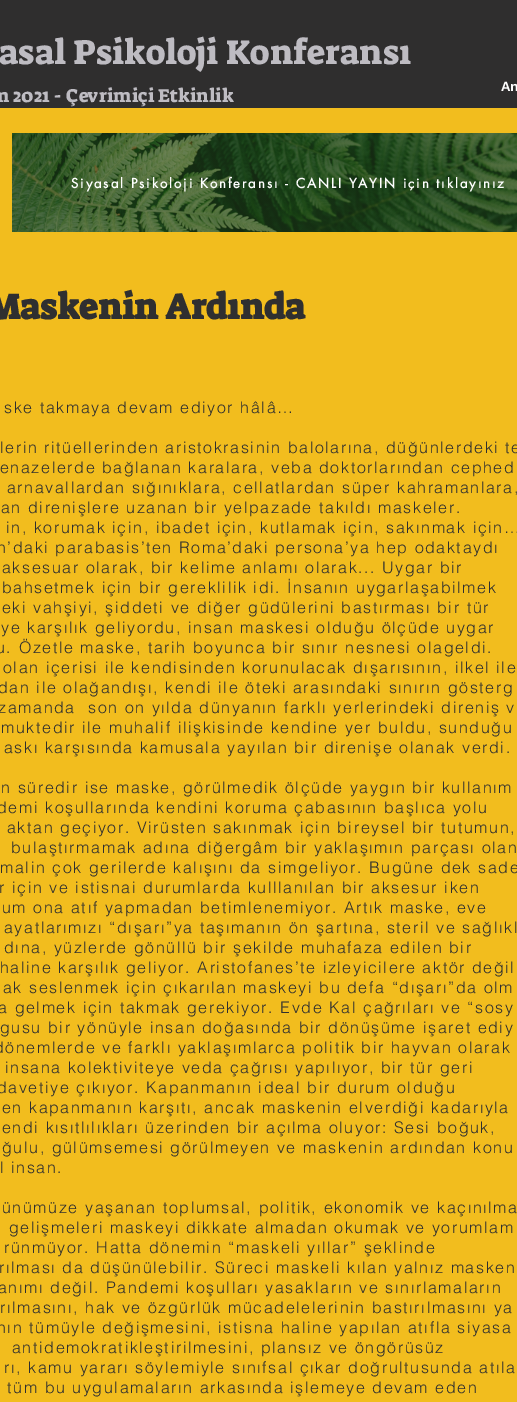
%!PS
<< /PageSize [517 1402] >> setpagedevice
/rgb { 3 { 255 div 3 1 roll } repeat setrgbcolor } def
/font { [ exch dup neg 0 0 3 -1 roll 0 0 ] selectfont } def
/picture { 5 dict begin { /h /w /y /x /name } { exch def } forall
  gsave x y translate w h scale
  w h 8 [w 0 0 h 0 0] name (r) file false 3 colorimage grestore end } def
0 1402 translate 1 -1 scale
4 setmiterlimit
242 189 30 rgb
0 0 517 1402 rectfill
47 46 46 rgb
0 0 517 108 rectfill
(img/1.rgb) 12 133 505 99 picture
/SuezOne-Regular 35 font
190 188 194 rgb
-1 64 moveto (asal Psikoloji Konferansı) show
/WorkSans-SemiBold 14 font
255 255 255 rgb
501 91 moveto (An) show
/SuezOne-Regular 19 font
190 188 194 rgb
-9 102 moveto (m 2021 - Çevrimiçi Etkinlik) show
/futura-Bold 13 font
255 255 255 rgb
71 188 moveto 1.95 0 (Siyasal Psikoloji Konferansı - CANLI YAYIN için tıklayınız) ashow
/SuezOne-Bold 36 font
47 47 48 rgb
-14 319 moveto (Maskenin Ardında) show
/helvetica-Light 16 font
4 413 moveto 1.6 0 (ske takmaya devam ediyor hâlâ…) ashow
0 453 moveto 1.6 0 (lerin ritüellerinden aristokrasinin balolarına, düğünlerdeki te) ashow
0 473 moveto 1.6 0 (enazelerde bağlanan karalara, veba doktorlarından cephed) ashow
7 493 moveto 1.6 0 (arnavallardan sığınıklara, cellatlardan süper kahramanlara,) ashow
1 513 moveto 1.6 0 (an direnişlere uzanan bir yelpazade takıldı maskeler.) ashow
6 533 moveto 1.6 0 (in, korumak için, ibadet için, kutlamak için, sakınmak için…) ashow
-3 553 moveto 1.6 0 (n’daki parabasis’ten Roma’daki persona’ya hep odaktaydı) ashow
2 573 moveto 1.6 0 (aksesuar olarak, bir kelime anlamı olarak... Uygar bir) ashow
2 593 moveto 1.6 0 (bahsetmek için bir gereklilik idi. İnsanın uygarlaşabilmek) ashow
2 613 moveto 1.6 0 (eki vahşiyi, şiddeti ve diğer güdülerini bastırması bir tür) ashow
1 633 moveto 1.6 0 (ye karşılık geliyordu, insan maskesi olduğu ölçüde uygar) ashow
-4 653 moveto 1.6 0 (u. Özetle maske, tarih boyunca bir sınır nesnesi olageldi.) ashow
3 673 moveto 1.6 0 (olan içerisi ile kendisinden korunulacak dışarısının, ilkel ile) ashow
-2 693 moveto 1.6 0 (dan ile olağandışı, kendi ile öteki arasındaki sınırın gösterg) ashow
-2 713 moveto 1.6 0 (zamanda  son on yılda dünyanın farklı yerlerindeki direniş v) ashow
1 733 moveto 1.6 0 (muktedir ile muhalif ilişkisinde kendine yer buldu, sunduğu) ashow
4 753 moveto 1.6 0 (askı karşısında kamusala yayılan bir direnişe olanak verdi.) ashow
1 793 moveto 1.6 0 (n süredir ise maske, görülmedik ölçüde yaygın bir kullanım) ashow
-3 813 moveto 1.6 0 (demi koşullarında kendini koruma çabasının başlıca yolu) ashow
7 833 moveto 1.6 0 (aktan geçiyor. Virüsten sakınmak için bireysel bir tutumun,) ashow
11 853 moveto 1.6 0 (bulaştırmamak adına diğergâm bir yaklaşımın parçası olan) ashow
0 873 moveto 1.6 0 (malin çok gerilerde kalışını da simgeliyor. Bugüne dek sade) ashow
-1 893 moveto 1.6 0 (r için ve istisnai durumlarda kulllanılan bir aksesur iken) ashow
2 913 moveto 1.6 0 (um ona atıf yapmadan betimlenemiyor. Artık maske, eve) ashow
4 933 moveto 1.6 0 (ayatlarımızı “dışarı”ya taşımanın ön şartına, steril ve sağlıkl) ashow
4 953 moveto 1.6 0 (dına, yüzlerde gönüllü bir şekilde muhafaza edilen bir) ashow
0 973 moveto 1.6 0 (haline karşılık geliyor. Aristofanes’te izleyicilere aktör değil) ashow
3 993 moveto 1.6 0 (ak seslenmek için çıkarılan maskeyi bu defa “dışarı”da olm) ashow
-2 1013 moveto 1.6 0 (a gelmek için takmak gerekiyor. Evde Kal çağrıları ve “sosy) ashow
0 1033 moveto 1.6 0 (gusu bir yönüyle insan doğasında bir dönüşüme işaret ediy) ashow
-6 1053 moveto 1.6 0 (dönemlerde ve farklı yaklaşımlarca politik bir hayvan olarak) ashow
5 1073 moveto 1.6 0 (insana kolektiviteye veda çağrısı yapılıyor, bir tür geri) ashow
-3 1093 moveto 1.6 0 (davetiye çıkıyor. Kapanmanın ideal bir durum olduğu) ashow
2 1113 moveto 1.6 0 (en kapanmanın karşıtı, ancak maskenin elverdiği kadarıyla) ashow
2 1133 moveto 1.6 0 (endi kısıtlılıkları üzerinden bir açılma oluyor: Sesi boğuk,) ashow
2 1153 moveto 1.6 0 (ğulu, gülümsemesi görülmeyen ve maskenin ardından konu) ashow
0 1173 moveto 1.6 0 (l insan.) ashow
2 1213 moveto 1.6 0 (ünümüze yaşanan toplumsal, politik, ekonomik ve kaçınılma) ashow
9 1233 moveto 1.6 0 (gelişmeleri maskeyi dikkate almadan okumak ve yorumlam) ashow
4 1253 moveto 1.6 0 (rünmüyor. Hatta dönemin “maskeli yıllar” şeklinde) ashow
-1 1273 moveto 1.6 0 (rılması da düşünülebilir. Süreci maskeli kılan yalnız masken) ashow
-2 1293 moveto 1.6 0 (anımı değil. Pandemi koşulları yasakların ve sınırlamaların) ashow
0 1313 moveto 1.6 0 (rılmasını, hak ve özgürlük mücadelelerinin bastırılmasını ya) ashow
-3 1333 moveto 1.6 0 (nın tümüyle değişmesini, istisna haline yapılan atıfla siyasa) ashow
12 1353 moveto 1.6 0 (antidemokratikleştirilmesini, plansız ve öngörüsüz) ashow
4 1373 moveto 1.6 0 (rı, kamu yararı söylemiyle sınıfsal çıkar doğrultusunda atıla) ashow
7 1393 moveto 1.6 0 (tüm bu uygulamaların arkasında işlemeye devam eden) ashow
showpage
